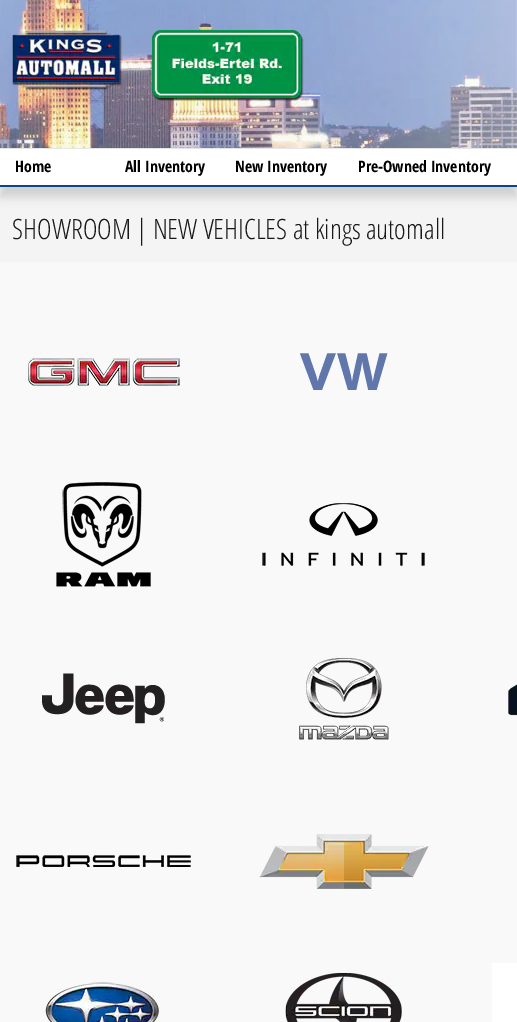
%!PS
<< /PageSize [517 1022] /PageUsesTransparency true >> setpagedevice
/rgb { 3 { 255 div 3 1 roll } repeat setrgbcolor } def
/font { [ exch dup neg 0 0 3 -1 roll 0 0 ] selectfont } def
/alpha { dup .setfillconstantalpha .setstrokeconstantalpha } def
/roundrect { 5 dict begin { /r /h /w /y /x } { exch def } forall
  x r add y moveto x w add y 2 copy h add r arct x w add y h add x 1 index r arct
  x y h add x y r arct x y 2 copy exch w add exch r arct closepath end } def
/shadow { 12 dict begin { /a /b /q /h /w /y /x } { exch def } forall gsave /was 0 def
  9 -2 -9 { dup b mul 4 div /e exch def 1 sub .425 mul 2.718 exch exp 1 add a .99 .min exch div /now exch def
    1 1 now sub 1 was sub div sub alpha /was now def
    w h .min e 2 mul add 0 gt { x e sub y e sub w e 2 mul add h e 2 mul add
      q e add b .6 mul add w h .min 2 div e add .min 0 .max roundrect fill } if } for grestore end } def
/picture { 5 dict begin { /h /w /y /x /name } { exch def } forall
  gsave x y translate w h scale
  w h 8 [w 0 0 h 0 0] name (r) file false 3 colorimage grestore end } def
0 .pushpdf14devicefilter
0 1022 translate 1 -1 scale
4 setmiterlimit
249 249 250 rgb
0 0 517 1022 rectfill
244 244 244 rgb
0 187 517 75 rectfill
0 0 0 rgb
0 158 517 39 0 5 0.15 shadow
(img/1.rgb) 0 0 517 148 picture
(img/2.rgb) 12 30 110 60 picture
(img/3.rgb) 152 30 152 71 picture
[
  [0 149 517 36 255 255 255]
  [0 185 517 2 10 70 141]
  [0 148 517 1 230 230 230]
] { aload pop rgb rectfill } forall
(img/4.rgb) 28 358 152 28 picture
(img/5.rgb) 300 353 88 37 picture
(img/6.rgb) 56 482 95 105 picture
(img/7.rgb) 262 503 163 63 picture
(img/8.rgb) 42 673 123 51 picture
(img/9.rgb) 299 657 90 83 picture
(img/10.rgb) 508 684 9 32 picture
(img/11.rgb) 16 855 175 12 picture
(img/12.rgb) 259 834 170 55 picture
(img/13.rgb) 45 982 114 40 picture
(img/14.rgb) 285 972 117 50 picture
255 255 255 rgb
492 963 25 59 rectfill
/OpenSansCondensed-Bold 15.75 font
0 0 0 rgb
[
  [(Home) 15 172]
  [(All Inventory) 125 172]
  [(New Inventory) 235 172]
  [(Pre-Owned Inventory) 358 172]
] { aload pop moveto show } forall
/OpenSans-Light 28 font
24 24 24 rgb
12 239 moveto (SHOWROOM | NEW VEHICLES at kings automall) show
.poppdf14devicefilter showpage
